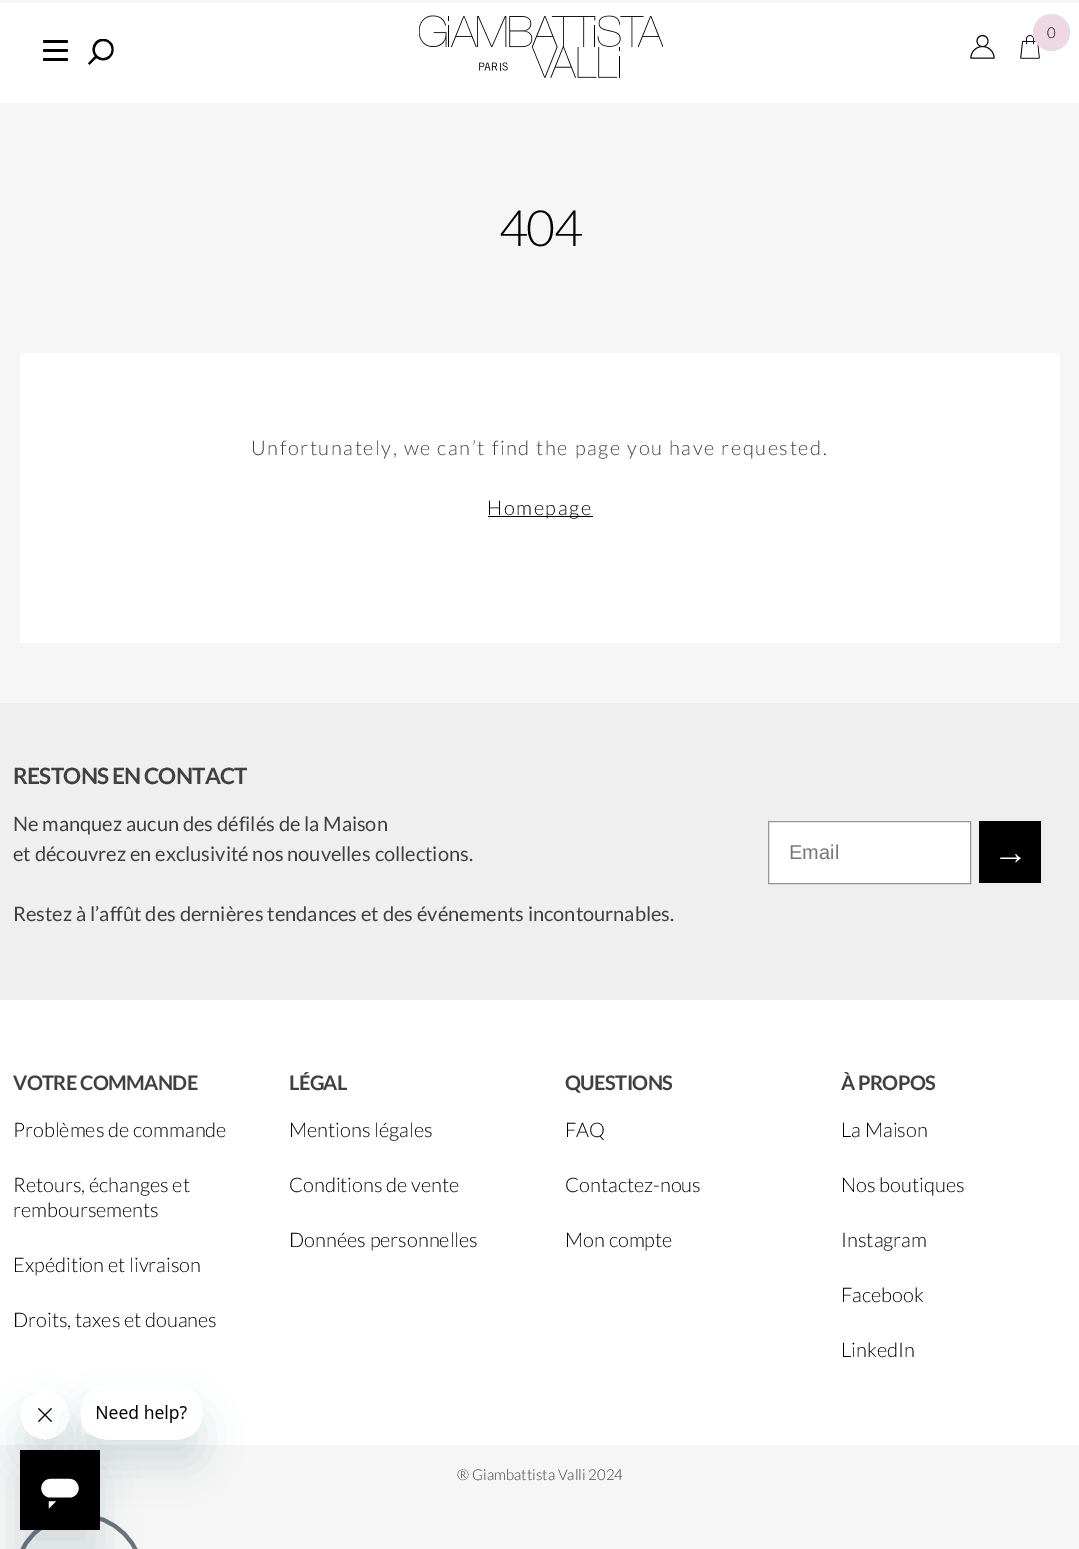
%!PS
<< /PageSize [1079 1549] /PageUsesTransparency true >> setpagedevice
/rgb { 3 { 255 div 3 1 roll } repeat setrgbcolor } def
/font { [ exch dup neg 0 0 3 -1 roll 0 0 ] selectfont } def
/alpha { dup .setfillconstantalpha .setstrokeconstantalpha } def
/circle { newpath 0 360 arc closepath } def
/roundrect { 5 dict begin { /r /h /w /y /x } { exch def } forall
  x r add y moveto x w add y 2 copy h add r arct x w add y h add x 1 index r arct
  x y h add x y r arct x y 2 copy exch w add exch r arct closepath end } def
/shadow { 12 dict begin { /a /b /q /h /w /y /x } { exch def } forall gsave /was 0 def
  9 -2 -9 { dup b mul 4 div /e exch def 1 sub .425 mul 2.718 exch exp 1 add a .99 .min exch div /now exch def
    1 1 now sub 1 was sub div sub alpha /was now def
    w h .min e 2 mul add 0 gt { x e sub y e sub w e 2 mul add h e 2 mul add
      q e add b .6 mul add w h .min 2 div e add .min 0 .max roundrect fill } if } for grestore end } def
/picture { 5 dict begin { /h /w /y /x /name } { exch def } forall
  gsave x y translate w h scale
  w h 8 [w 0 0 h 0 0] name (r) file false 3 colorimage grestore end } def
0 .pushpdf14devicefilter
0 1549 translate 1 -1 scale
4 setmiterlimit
247 246 246 rgb
0 0 1079 1549 rectfill
255 255 255 rgb
0 3 1079 100 rectfill
(img/1.rgb) 419 15 244 63 picture
(img/2.rgb) 1020 35 20 24 picture
236 217 228 rgb
1051.5 32.5 18.5 circle fill
(img/3.rgb) 970 35 25 24 picture
(img/4.rgb) 88 39 26 26 picture
0 0 0 rgb
43 49 25 3 1.5 roundrect fill
43 40 25 3 1.5 roundrect fill
43 58 25 3 1.5 roundrect fill
[
  [20 353 1040 290 255 255 255]
  [488 516 105 1 0 0 0]
  [0 703 1079 297 239 239 239]
] { aload pop rgb rectfill } forall
255 255 255 rgb
768.5 821.5 moveto 970.5 821.5 lineto 970.5 883.5 lineto 768.5 883.5 lineto closepath gsave fill grestore
148 149 150 rgb
stroke
0 0 0 rgb
979 821 62 62 rectfill
255 255 255 rgb
0 1000 1079 445 rectfill
105 114 125 rgb
4 setlinewidth
15 1515 128 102 64 roundrect stroke
gsave
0 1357 moveto 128 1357 lineto 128 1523 lineto 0 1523 lineto closepath 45 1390 moveto 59 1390 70 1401 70 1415 curveto 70 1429 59 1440 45 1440 curveto 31 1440 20 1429 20 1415 curveto 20 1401 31 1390 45 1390 curveto closepath eoclip newpath
23 73 77 rgb
20 1415 50 50 25 19 0.15 shadow
grestore
(img/6.rgb) 38 1408 14 14 picture
gsave
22 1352 moveto 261 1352 lineto 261 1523 lineto 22 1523 lineto closepath 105 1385 moveto 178 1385 lineto 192 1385 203 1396 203 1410 curveto 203 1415 lineto 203 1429 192 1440 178 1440 curveto 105 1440 lineto 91 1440 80 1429 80 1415 curveto 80 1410 lineto 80 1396 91 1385 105 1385 curveto closepath eoclip newpath
23 73 77 rgb
80 1410 123 55 25 19 0.15 shadow
grestore
(img/5.rgb) 81 1405 106 29 picture
23 73 77 rgb
20 1475 80 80 0 19 0.15 shadow
(img/7.rgb) 20 1450 80 80 picture
/Lato-Light 15 font
0 0 0 rgb
1047 38 moveto (0) show
/Lato-Light 50 font
499 246 moveto -1.5 0 (404) ashow
/Lato-Light 20 font
64 64 64 rgb
251 455 moveto 1.6 0 (Unfortunately, we can’t find the page you have requested.) ashow
0 0 0 rgb
487 515 moveto 1.6 0 (Homepage) ashow
/Lato-Bold 22.5 font
64 64 64 rgb
13 784 moveto -0.7 0 (RESTONS EN CONTACT) ashow
/Lato-Regular 20 font
[
  [(Ne manquez aucun des défilés de la Maison) 13 831]
  [(et découvrez en exclusivité nos nouvelles collections.) 13 861]
  [(Restez à l’affût des dernières tendances et des événements incontournables.) 13 921]
] { aload pop moveto show } forall
/LiberationSans-Regular 20 font
118 118 118 rgb
789 859 moveto (Email) show
/LiberationSans-Regular 35 font
255 255 255 rgb
993 864 moveto (→) show
/Lato-Bold 20 font
64 64 64 rgb
13 1090 moveto -0.6 0 (VOTRE COMMANDE) ashow
/Lato-Light 20 font
0 0 0 rgb
[
  [(Problèmes de commande) 13 1137]
  [(Retours, échanges et) 13 1192]
  [(remboursements) 13 1217]
  [(Expédition et livraison) 13 1272]
  [(Droits, taxes et douanes) 13 1327]
] { aload pop moveto show } forall
/Lato-Bold 20 font
64 64 64 rgb
289 1090 moveto -0.6 0 (LÉGAL) ashow
/Lato-Light 20 font
0 0 0 rgb
[
  [(Mentions légales) 289 1137]
  [(Conditions de vente) 289 1192]
  [(Données personnelles) 289 1247]
] { aload pop moveto show } forall
/Lato-Bold 20 font
64 64 64 rgb
565 1090 moveto -0.6 0 (QUESTIONS) ashow
/Lato-Light 20 font
0 0 0 rgb
[
  [(FAQ) 565 1137]
  [(Contactez-nous) 565 1192]
  [(Mon compte) 565 1247]
] { aload pop moveto show } forall
/Lato-Bold 20 font
64 64 64 rgb
841 1090 moveto -0.6 0 (À PROPOS) ashow
/Lato-Light 20 font
0 0 0 rgb
[
  [(La Maison) 841 1137]
  [(Nos boutiques) 841 1192]
  [(Instagram) 841 1247]
  [(Facebook) 841 1302]
  [(LinkedIn) 841 1357]
] { aload pop moveto show } forall
/Lato-Light 15 font
64 64 64 rgb
457 1480 moveto (® Giambattista Valli 2024) show
.poppdf14devicefilter showpage
